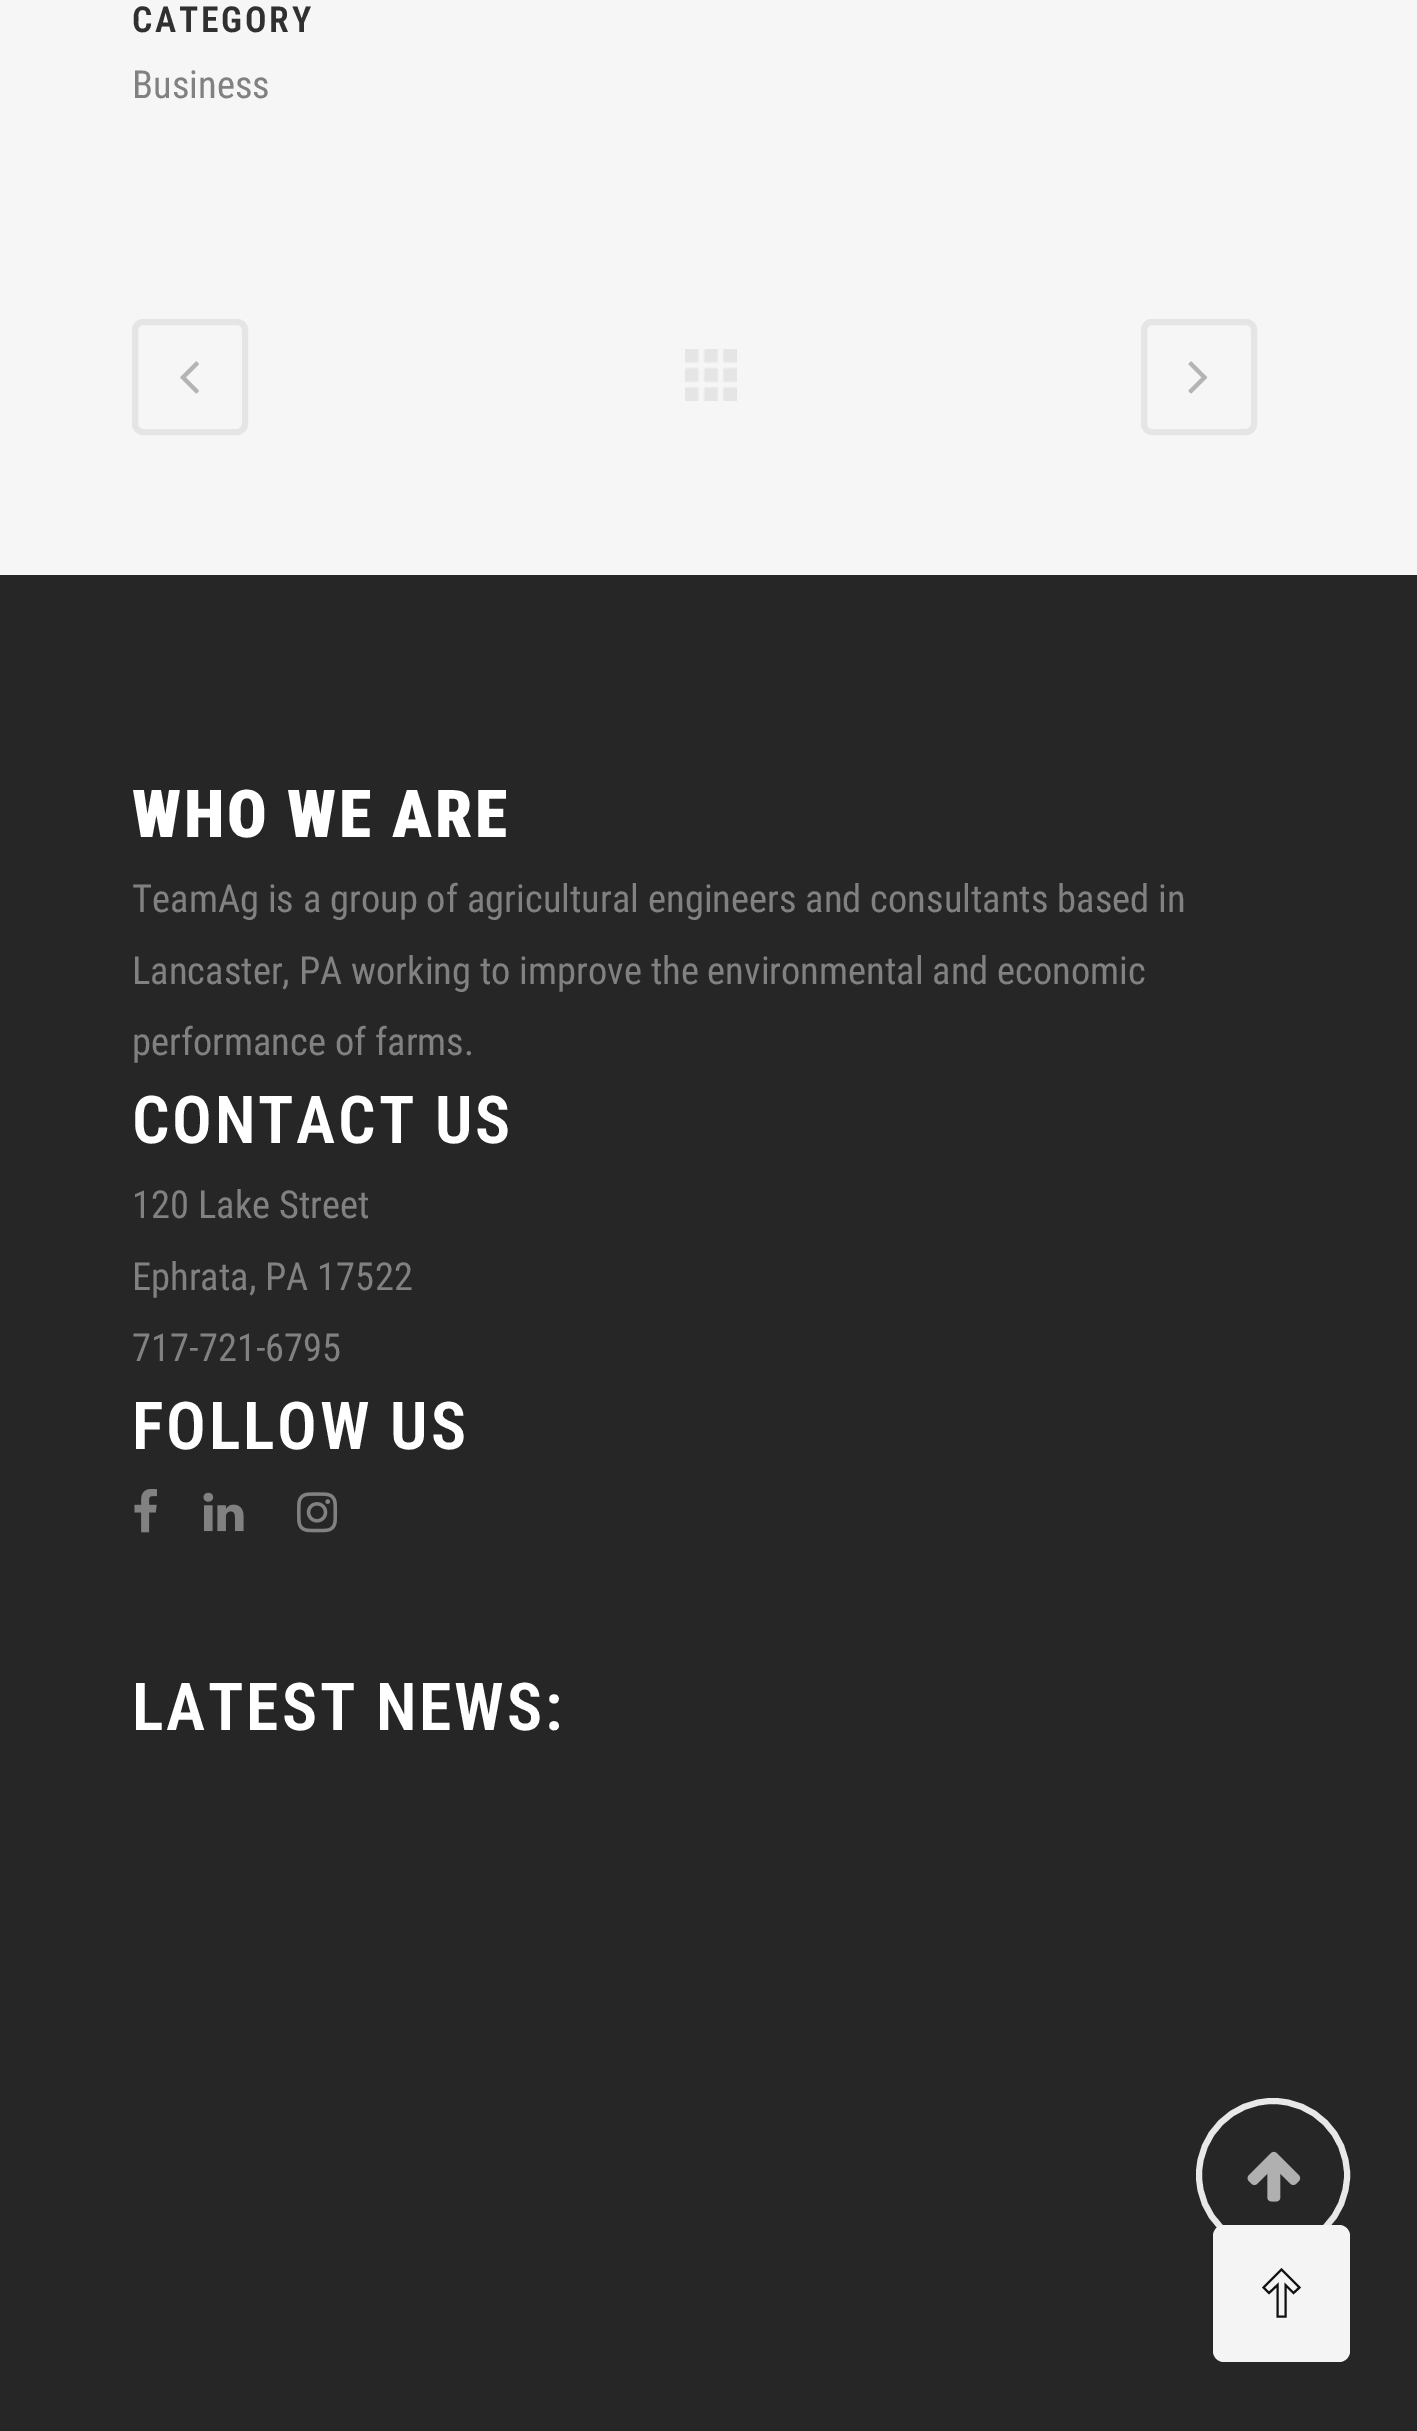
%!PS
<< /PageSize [1417 2431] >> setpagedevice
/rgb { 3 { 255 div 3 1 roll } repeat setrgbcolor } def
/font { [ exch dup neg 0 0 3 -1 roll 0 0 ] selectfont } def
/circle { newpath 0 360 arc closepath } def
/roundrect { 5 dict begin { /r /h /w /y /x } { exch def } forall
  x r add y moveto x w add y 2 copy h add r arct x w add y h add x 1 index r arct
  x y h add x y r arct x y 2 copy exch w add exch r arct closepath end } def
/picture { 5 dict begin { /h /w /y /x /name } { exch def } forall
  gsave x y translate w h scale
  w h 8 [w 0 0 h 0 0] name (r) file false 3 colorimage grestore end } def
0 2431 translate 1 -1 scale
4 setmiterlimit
246 246 246 rgb
0 0 1417 2431 rectfill
229 229 229 rgb
6 setlinewidth
135 322 110 110 8 roundrect stroke
(img/1.rgb) 180 361 19 33 picture
(img/2.rgb) 685 349 52 52 picture
1144 322 110 110 8 roundrect stroke
(img/3.rgb) 1188 361 20 33 picture
38 38 38 rgb
0 575 1417 1856 rectfill
(img/4.rgb) 134 1488 23 45 picture
(img/5.rgb) 203 1492 41 40 picture
(img/6.rgb) 297 1492 41 41 picture
232 232 232 rgb
1273 2175 74 circle stroke
(img/7.rgb) 1247 2151 54 51 picture
244 244 244 rgb
1213 2225 137 137 11 roundrect fill
gsave
1262.5 2318 moveto 1262.5 2268.5 lineto 1300.5 2268.5 lineto 1300.5 2318 lineto closepath clip newpath
17 17 17 rgb
2 setlinewidth
1277.5 2316.5 moveto 1277.5 2285 lineto 1269 2293 lineto 1263.5 2287.5 lineto 1281.5 2269.5 lineto 1299.5 2287.5 lineto 1293.5 2293 lineto 1285.5 2285 lineto 1285.5 2316.5 lineto closepath stroke
grestore
/RobotoCondensed-SemiBold 35.75 font
48 48 48 rgb
132 32 moveto 2.75 0 (CATEGORY) ashow
/RobotoCondensed-Regular 38.5 font
129 129 129 rgb
132 98 moveto (Business) show
/RobotoCondensed-Black 66 font
255 255 255 rgb
132 837 moveto 2.75 0 (WHO WE ARE) ashow
/RobotoCondensed-Regular 38.5 font
129 129 129 rgb
[
  [(TeamAg is a group of agricultural engineers and consultants based in) 132 912]
  [(Lancaster, PA working to improve the environmental and economic) 132 984]
  [(performance of farms.) 132 1055]
] { aload pop moveto show } forall
/RobotoCondensed-SemiBold 66 font
255 255 255 rgb
132 1143 moveto 2.75 0 (CONTACT US) ashow
/RobotoCondensed-Regular 38.5 font
129 129 129 rgb
[
  [(120 Lake Street) 132 1218]
  [(Ephrata, PA 17522) 132 1290]
  [(717-721-6795) 132 1361]
] { aload pop moveto show } forall
/RobotoCondensed-SemiBold 66 font
255 255 255 rgb
132 1449 moveto 2.75 0 (FOLLOW US) ashow
132 1730 moveto 2.75 0 (LATEST NEWS:) ashow
showpage
